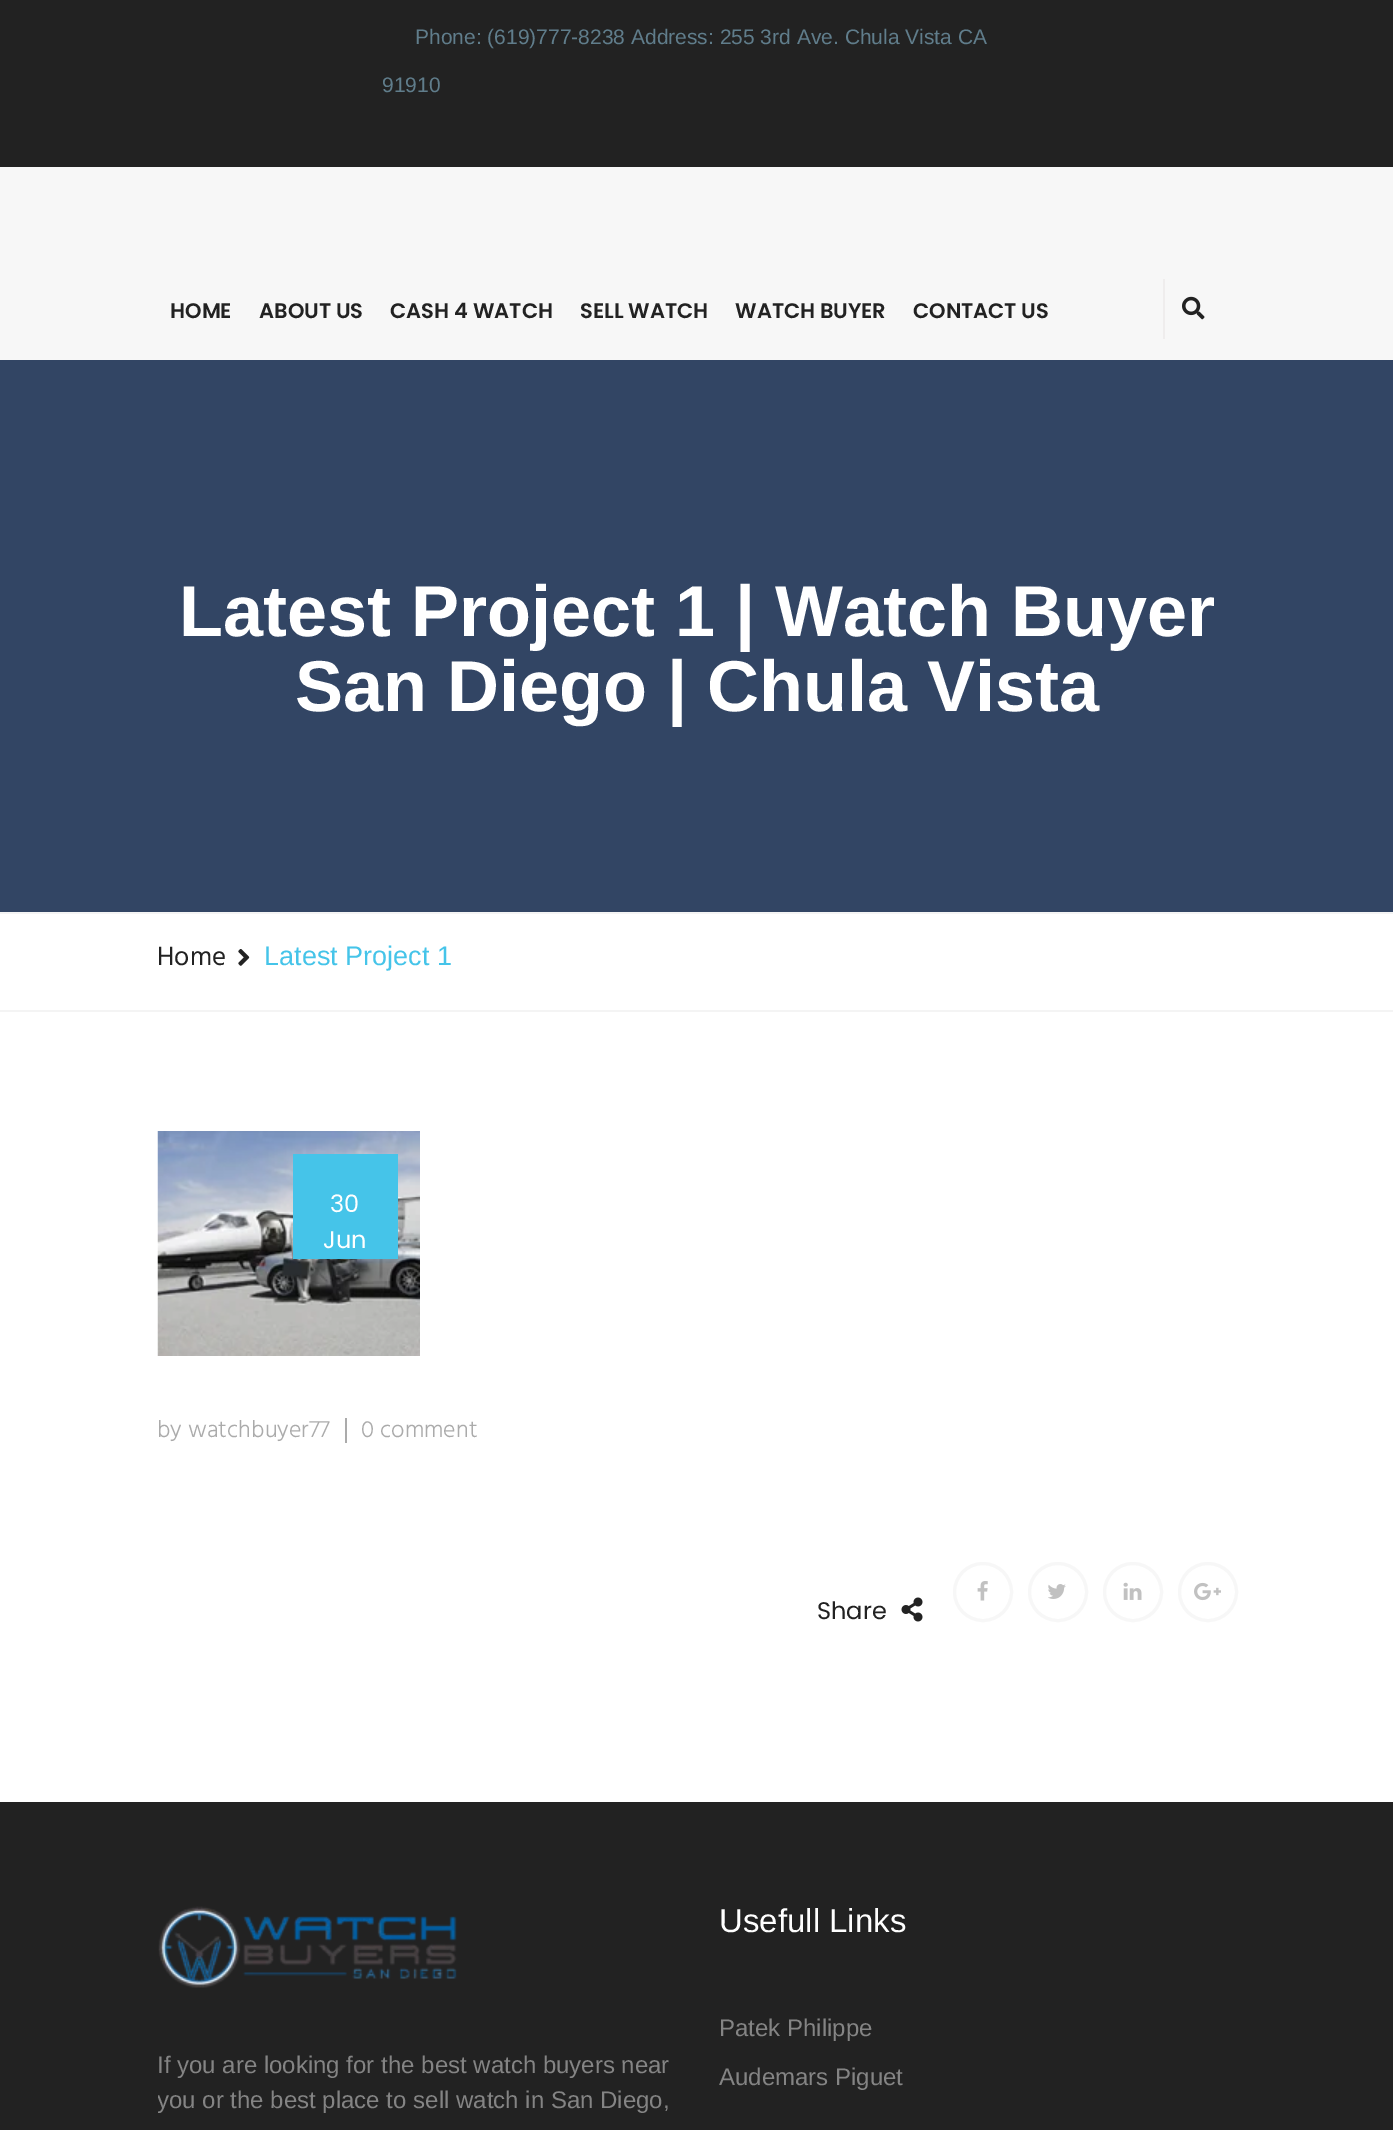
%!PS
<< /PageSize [1393 2130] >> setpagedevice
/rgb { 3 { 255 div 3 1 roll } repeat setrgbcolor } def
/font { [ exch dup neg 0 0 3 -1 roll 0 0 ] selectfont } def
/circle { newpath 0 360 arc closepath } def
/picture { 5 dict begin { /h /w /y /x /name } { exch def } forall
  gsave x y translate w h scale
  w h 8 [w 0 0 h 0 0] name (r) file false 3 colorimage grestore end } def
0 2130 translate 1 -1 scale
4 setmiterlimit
255 255 255 rgb
0 0 1393 2130 rectfill
[
  [0 0 1393 167 34 34 34]
  [0 167 1393 193 247 247 247]
  [1163 279 2 60 239 237 237]
] { aload pop rgb rectfill } forall
(img/1.rgb) 1182 296 23 24 picture
[
  [0 360 1393 552 50 69 100]
  [0 912 1393 2 244 244 244]
  [0 1010 1393 2 244 244 244]
] { aload pop rgb rectfill } forall
(img/2.rgb) 238 949 12 17 picture
(img/3.rgb) 157 1131 263 225 picture
69 196 233 rgb
293 1154 105 105 rectfill
171 171 171 rgb
345 1418 2 25 rectfill
(img/4.rgb) 901 1597 22 25 picture
247 247 247 rgb
3 setlinewidth
983 1592 28.5 circle stroke
(img/5.rgb) 977 1581 11 20 picture
1058 1592 28.5 circle stroke
(img/6.rgb) 1048 1584 18 15 picture
1133 1592 28.5 circle stroke
(img/7.rgb) 1123 1582 19 18 picture
1208 1592 28.5 circle stroke
(img/8.rgb) 1194 1582 27 19 picture
34 34 34 rgb
0 1802 1393 328 rectfill
(img/9.rgb) 158 1906 299 82 picture
/LiberationSans-Regular 21 font
96 125 139 rgb
415 44 moveto (Phone: \(619\)777-8238 Address: 255 3rd Ave. Chula Vista CA) show
gsave
383 12 630 96 rectclip
382 92 moveto (91910) show
grestore
/Poppins-SemiBold 21 font
34 34 34 rgb
[
  [(HOME) 170 318]
  [(ABOUT US) 259 318]
  [(CASH 4 WATCH) 390 318]
  [(SELL WATCH) 580 318]
  [(WATCH BUYER) 735 318]
  [(CONTACT US) 913 318]
] { aload pop moveto show } forall
/LiberationSans-Bold 72 font
255 255 255 rgb
179 636 moveto (Latest Project 1 | Watch Buyer) show
295 711 moveto (San Diego | Chula Vista) show
/Hind-Regular 27 font
34 34 34 rgb
157 965 moveto (Home) show
/LiberationSans-Regular 27 font
69 196 233 rgb
264 965 moveto (Latest Project 1) show
/Poppins-Regular 24 font
255 255 255 rgb
330 1212 moveto (30) show
323 1248 moveto (Jun) show
/Hind-Light 24 font
171 171 171 rgb
157 1437 moveto (by watchbuyer77) show
361 1437 moveto (0 comment) show
/Poppins-Regular 24 font
34 34 34 rgb
817 1619 moveto (Share) show
/LiberationSans-Regular 24 font
132 132 132 rgb
157 2073 moveto (If you are looking for the best watch buyers near) show
gsave
158 2027 517 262 rectclip
157 2108 moveto (you or the best place to sell watch in San Diego,) show
grestore
/LiberationSans-Regular 33 font
255 255 255 rgb
719 1932 moveto (Usefull Links) show
/LiberationSans-Regular 24 font
132 132 132 rgb
719 2036 moveto (Patek Philippe) show
719 2085 moveto (Audemars Piguet) show
showpage
